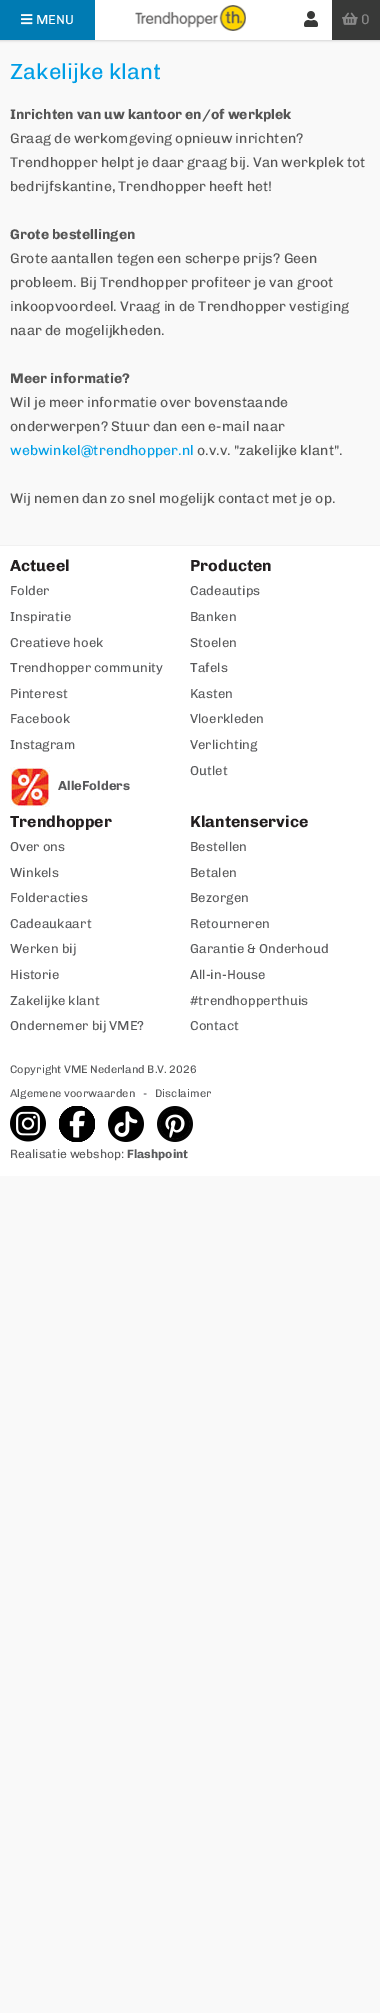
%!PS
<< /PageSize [380 2013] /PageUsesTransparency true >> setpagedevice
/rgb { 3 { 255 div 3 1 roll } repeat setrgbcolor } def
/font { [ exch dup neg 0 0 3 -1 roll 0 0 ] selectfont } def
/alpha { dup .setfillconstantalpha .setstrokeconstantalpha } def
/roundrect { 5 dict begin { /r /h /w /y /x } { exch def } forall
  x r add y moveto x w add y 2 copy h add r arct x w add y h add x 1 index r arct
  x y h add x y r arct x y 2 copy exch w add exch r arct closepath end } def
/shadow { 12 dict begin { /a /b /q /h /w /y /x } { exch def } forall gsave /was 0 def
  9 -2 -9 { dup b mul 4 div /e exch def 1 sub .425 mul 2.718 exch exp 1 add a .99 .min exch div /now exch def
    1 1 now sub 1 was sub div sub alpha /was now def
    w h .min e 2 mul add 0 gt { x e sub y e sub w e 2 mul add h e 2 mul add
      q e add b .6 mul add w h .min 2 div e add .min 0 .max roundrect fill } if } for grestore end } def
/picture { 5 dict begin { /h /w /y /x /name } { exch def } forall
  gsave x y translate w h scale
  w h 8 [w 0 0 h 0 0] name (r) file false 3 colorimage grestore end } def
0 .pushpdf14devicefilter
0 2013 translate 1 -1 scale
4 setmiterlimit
249 249 249 rgb
0 0 380 2013 rectfill
0 0 0 rgb
0 0 380 40 0 1.5 0.25 shadow
255 255 255 rgb
95 0 237 40 rectfill
0 123 179 rgb
0 0 95 40 rectfill
(img/1.rgb) 21 14 12 11 picture
(img/2.rgb) 135 5 111 26 picture
(img/3.rgb) 304 11 14 16 picture
56 57 56 rgb
332 0 48 40 rectfill
(img/4.rgb) 342 12 16 13 picture
255 255 255 rgb
0 546 380 630 rectfill
241 241 241 rgb
0 545 380 1 rectfill
(img/5.rgb) 10 767 40 40 picture
(img/6.rgb) 10 1106 36 36 picture
(img/7.rgb) 59 1106 36 36 picture
(img/8.rgb) 108 1106 36 36 picture
(img/9.rgb) 157 1106 36 36 picture
/Chivo-Regular 13 font
255 255 255 rgb
36 24 moveto (MENU) show
/Chivo-Regular 14 font
136 136 136 rgb
361 24 moveto (0) show
/Chivo-Regular 22 font
0 158 230 rgb
10 79 moveto (Zakelijke klant) show
/Chivo-Bold 14 font
85 85 85 rgb
10 119 moveto (Inrichten van uw kantoor en/of werkplek) show
/Chivo-Regular 14 font
[
  [(Graag de werkomgeving opnieuw inrichten?) 10 143]
  [(Trendhopper helpt je daar graag bij. Van werkplek tot) 10 167]
  [(bedrijfskantine, Trendhopper heeft het!) 10 191]
] { aload pop moveto show } forall
/Chivo-Bold 14 font
10 239 moveto (Grote bestellingen) show
/Chivo-Regular 14 font
[
  [(Grote aantallen tegen een scherpe prijs? Geen) 10 263]
  [(probleem. Bij Trendhopper profiteer je van groot) 10 287]
  [(inkoopvoordeel. Vraag in de Trendhopper vestiging) 10 311]
  [(naar de mogelijkheden.) 10 335]
] { aload pop moveto show } forall
/Chivo-Bold 14 font
10 383 moveto (Meer informatie?) show
/Chivo-Regular 14 font
10 407 moveto (Wil je meer informatie over bovenstaande) show
10 431 moveto (onderwerpen? Stuur dan een e-mail naar) show
0 158 230 rgb
10 455 moveto (webwinkel@trendhopper.nl) show
85 85 85 rgb
197 455 moveto (o.v.v. "zakelijke klant".) show
10 503 moveto (Wij nemen dan zo snel mogelijk contact met je op.) show
/Chivo-Bold 16 font
35 31 32 rgb
10 571 moveto (Actueel) show
/Chivo-Regular 13 font
88 89 91 rgb
[
  [(Folder) 10 595]
  [(Inspiratie) 10 621]
  [(Creatieve hoek) 10 647]
  [(Trendhopper community) 10 672]
  [(Pinterest) 10 698]
  [(Facebook) 10 723]
  [(Instagram) 10 749]
] { aload pop moveto show } forall
/Chivo-Bold 13 font
58 790 moveto (AlleFolders) show
/Chivo-Bold 16 font
35 31 32 rgb
190 571 moveto (Producten) show
/Chivo-Regular 13 font
88 89 91 rgb
[
  [(Cadeautips) 190 595]
  [(Banken) 190 621]
  [(Stoelen) 190 647]
  [(Tafels) 190 672]
  [(Kasten) 190 698]
  [(Vloerkleden) 190 723]
  [(Verlichting) 190 749]
  [(Outlet) 190 775]
] { aload pop moveto show } forall
/Chivo-Bold 16 font
35 31 32 rgb
10 827 moveto (Trendhopper) show
/Chivo-Regular 13 font
88 89 91 rgb
[
  [(Over ons) 10 851]
  [(Winkels) 10 877]
  [(Folderacties) 10 902]
  [(Cadeaukaart) 10 928]
  [(Werken bij) 10 953]
  [(Historie) 10 979]
  [(Zakelijke klant) 10 1005]
  [(Ondernemer bij VME?) 10 1030]
] { aload pop moveto show } forall
/Chivo-Bold 16 font
35 31 32 rgb
190 827 moveto (Klantenservice) show
/Chivo-Regular 13 font
88 89 91 rgb
[
  [(Bestellen) 190 851]
  [(Betalen) 190 877]
  [(Bezorgen) 190 902]
  [(Retourneren) 190 928]
  [(Garantie & Onderhoud) 190 953]
  [(All-in-House) 190 979]
  [(#trendhopperthuis) 190 1005]
  [(Contact) 190 1030]
] { aload pop moveto show } forall
/Chivo-Regular 11 font
[
  [(Copyright VME Nederland B.V. 2026) 10 1073]
  [(Algemene voorwaarden) 10 1097]
  [(-) 143 1097]
  [(Disclaimer) 155 1097]
] { aload pop moveto show } forall
/Chivo-Regular 12 font
10 1158 moveto (Realisatie webshop:) show
/Chivo-Bold 12 font
127 1158 moveto (Flashpoint) show
.poppdf14devicefilter showpage
